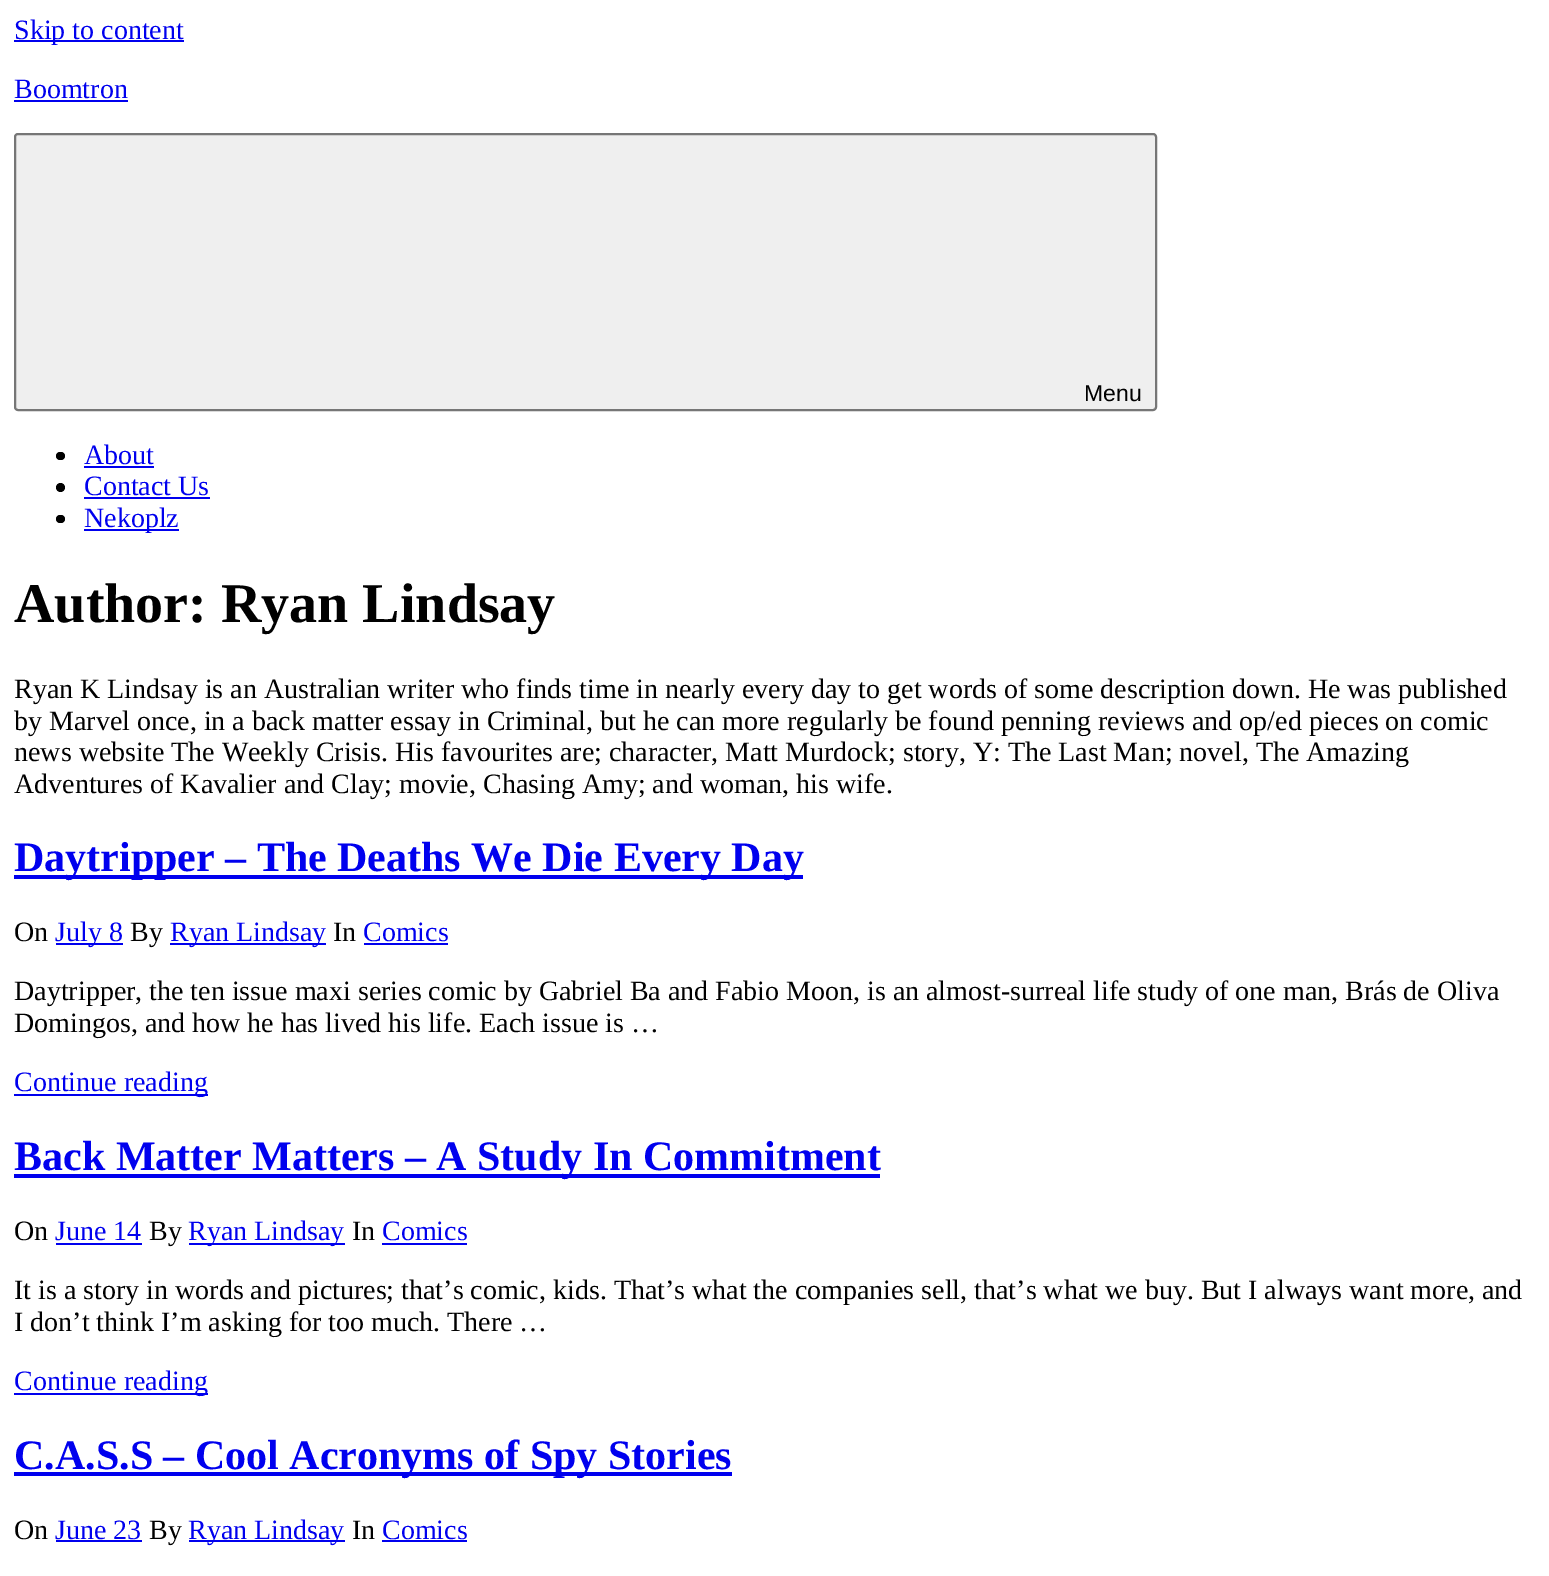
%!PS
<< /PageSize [1549 1576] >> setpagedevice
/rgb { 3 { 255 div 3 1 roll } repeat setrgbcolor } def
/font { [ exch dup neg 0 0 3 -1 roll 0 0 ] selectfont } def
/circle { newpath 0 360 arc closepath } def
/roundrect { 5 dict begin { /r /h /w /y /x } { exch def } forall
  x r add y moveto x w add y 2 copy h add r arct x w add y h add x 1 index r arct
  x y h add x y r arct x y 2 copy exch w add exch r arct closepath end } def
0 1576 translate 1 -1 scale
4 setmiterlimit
255 255 255 rgb
0 0 1549 1576 rectfill
0 0 238 rgb
14 40 170 2 rectfill
14 100 114 2 rectfill
239 239 239 rgb
15 134 1141 276 3 roundrect gsave fill grestore
118 118 118 rgb
2 setlinewidth
stroke
0 0 0 rgb
56 452 9 8 4 roundrect fill
0 0 238 rgb
84 466 70 2 rectfill
0 0 0 rgb
60.5 487.5 4.5 circle fill
0 0 238 rgb
84 497 126 2 rectfill
0 0 0 rgb
56 515 9 8 4 roundrect fill
[
  [84 529 95 2 0 0 238]
  [14 875 789 4 0 0 238]
  [56 943 67 2 0 0 238]
  [170 943 156 2 0 0 238]
  [364 943 84 2 0 0 238]
  [14 1094 194 2 0 0 238]
  [14 1174 866 4 0 0 238]
  [56 1243 86 2 0 0 238]
  [189 1243 156 2 0 0 238]
  [382 1243 85 2 0 0 238]
  [14 1393 194 2 0 0 238]
  [14 1472 718 4 0 0 238]
  [56 1540 86 2 0 0 238]
  [189 1540 156 2 0 0 238]
  [382 1540 85 2 0 0 238]
] { aload pop rgb rectfill } forall
/LiberationSerif-Regular 28 font
14 39 moveto (Skip to content) show
14 98 moveto (Boomtron) show
/LiberationSans-Regular 23 font
0 0 0 rgb
1084 401 moveto (Menu) show
/LiberationSerif-Regular 28 font
0 0 238 rgb
[
  [(About) 84 464]
  [(Contact Us) 84 495]
  [(Nekoplz) 84 527]
] { aload pop moveto show } forall
/LiberationSerif-Bold 56 font
0 0 0 rgb
14 622 moveto (Author: Ryan Lindsay) show
/LiberationSerif-Regular 28 font
[
  [(Ryan K Lindsay is an Australian writer who finds time in nearly every day to get words of some description down. He was published) 14 698]
  [(by Marvel once, in a back matter essay in Criminal, but he can more regularly be found penning reviews and op/ed pieces on comic) 14 730]
  [(news website The Weekly Crisis. His favourites are; character, Matt Murdock; story, Y: The Last Man; novel, The Amazing) 14 761]
  [(Adventures of Kavalier and Clay; movie, Chasing Amy; and woman, his wife.) 14 793]
] { aload pop moveto show } forall
/LiberationSerif-Bold 42 font
0 0 238 rgb
14 871 moveto (Daytripper – The Deaths We Die Every Day) show
/LiberationSerif-Regular 28 font
0 0 0 rgb
14 941 moveto (On) show
0 0 238 rgb
55 941 moveto (July 8) show
0 0 0 rgb
130 941 moveto (By) show
0 0 238 rgb
170 941 moveto (Ryan Lindsay) show
0 0 0 rgb
333 941 moveto (In) show
0 0 238 rgb
363 941 moveto (Comics) show
0 0 0 rgb
14 1000 moveto (Daytripper, the ten issue maxi series comic by Gabriel Ba and Fabio Moon, is an almost-surreal life study of one man, Brás de Oliva) show
14 1032 moveto (Domingos, and how he has lived his life. Each issue is …) show
0 0 238 rgb
14 1091 moveto (Continue reading) show
/LiberationSerif-Bold 42 font
14 1170 moveto (Back Matter Matters – A Study In Commitment) show
/LiberationSerif-Regular 28 font
0 0 0 rgb
14 1240 moveto (On) show
0 0 238 rgb
55 1240 moveto (June 14) show
0 0 0 rgb
149 1240 moveto (By) show
0 0 238 rgb
188 1240 moveto (Ryan Lindsay) show
0 0 0 rgb
352 1240 moveto (In) show
0 0 238 rgb
382 1240 moveto (Comics) show
0 0 0 rgb
14 1299 moveto (It is a story in words and pictures; that’s comic, kids. That’s what the companies sell, that’s what we buy. But I always want more, and) show
14 1331 moveto (I don’t think I’m asking for too much. There …) show
0 0 238 rgb
14 1390 moveto (Continue reading) show
/LiberationSerif-Bold 42 font
14 1469 moveto (C.A.S.S – Cool Acronyms of Spy Stories) show
/LiberationSerif-Regular 28 font
0 0 0 rgb
14 1539 moveto (On) show
0 0 238 rgb
55 1539 moveto (June 23) show
0 0 0 rgb
149 1539 moveto (By) show
0 0 238 rgb
188 1539 moveto (Ryan Lindsay) show
0 0 0 rgb
352 1539 moveto (In) show
0 0 238 rgb
382 1539 moveto (Comics) show
showpage
